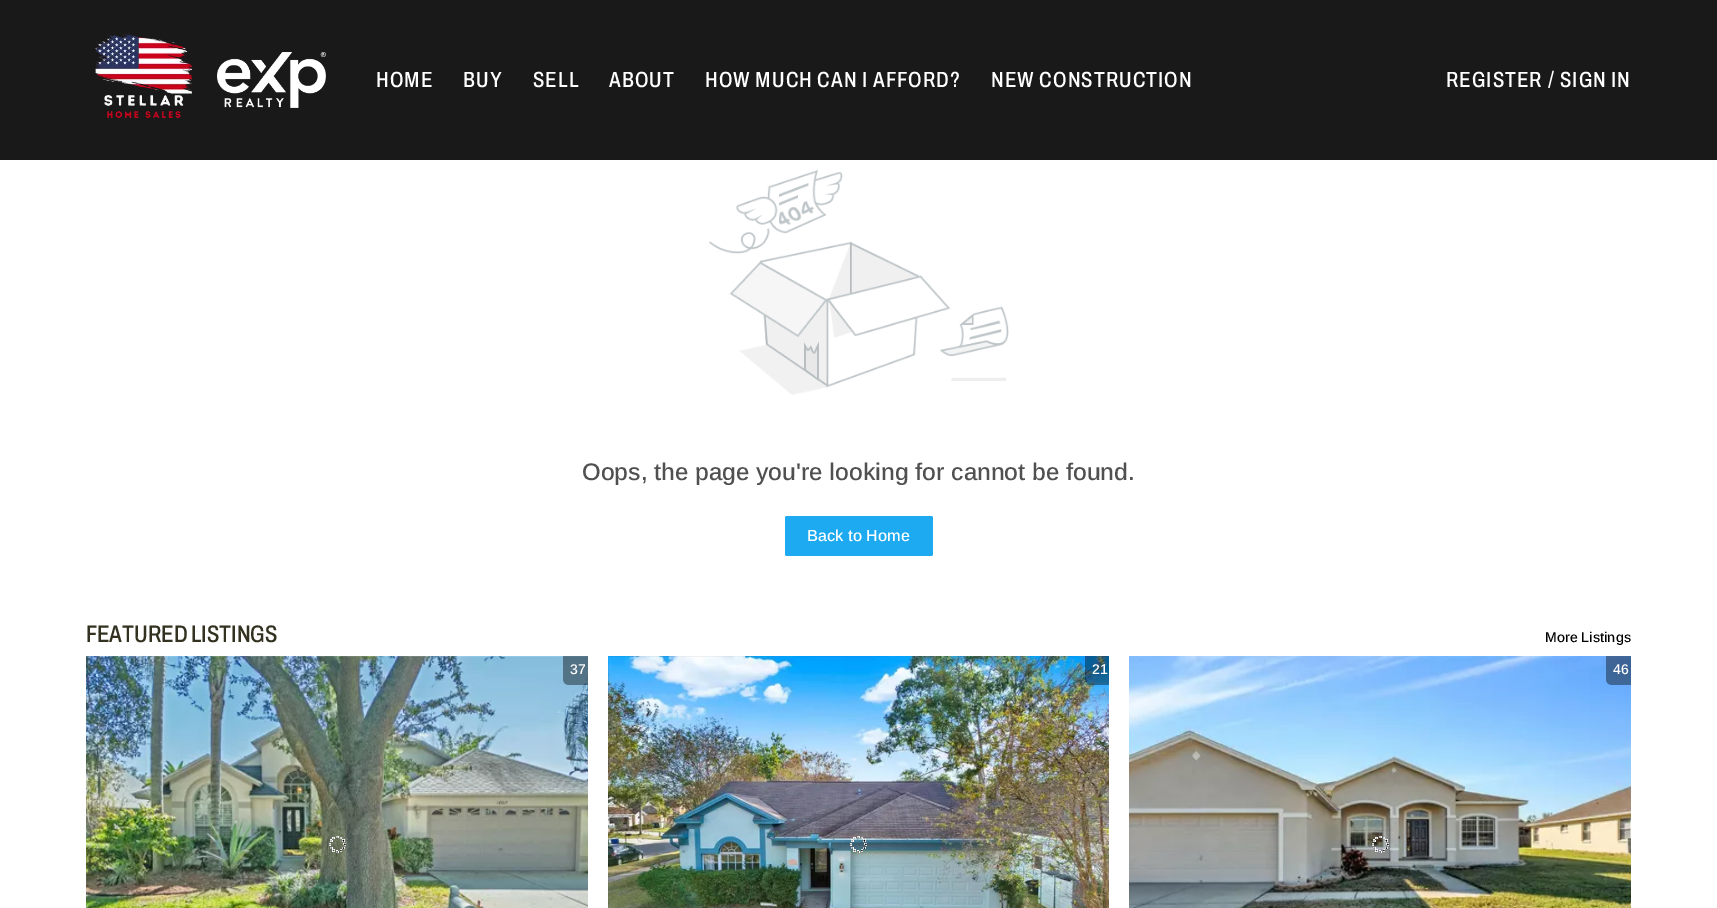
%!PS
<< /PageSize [1717 908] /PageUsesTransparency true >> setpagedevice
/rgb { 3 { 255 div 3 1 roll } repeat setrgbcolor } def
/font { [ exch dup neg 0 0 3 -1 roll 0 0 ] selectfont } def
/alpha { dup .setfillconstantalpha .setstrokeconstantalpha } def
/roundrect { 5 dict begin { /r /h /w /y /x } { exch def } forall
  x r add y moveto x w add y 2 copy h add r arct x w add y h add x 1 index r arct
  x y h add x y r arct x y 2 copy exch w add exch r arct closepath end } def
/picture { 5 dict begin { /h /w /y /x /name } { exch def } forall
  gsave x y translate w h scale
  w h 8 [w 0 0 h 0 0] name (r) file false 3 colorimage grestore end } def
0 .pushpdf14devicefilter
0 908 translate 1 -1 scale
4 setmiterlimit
255 255 255 rgb
0 0 1717 908 rectfill
25 25 25 rgb
0 0 1717 160 rectfill
(img/1.rgb) 95 33 98 86 picture
(img/2.rgb) 217 52 109 56 picture
(img/3.rgb) 709 170 300 225 picture
29 170 240 rgb
785 516 148 40 2 roundrect fill
(img/4.rgb) 86 656 502 252 picture
(img/5.rgb) 329 836 17 17 picture
0.4 alpha
0 0 0 rgb
563 656 moveto 588 656 lineto 588 685 lineto 569 685 lineto 565.5 685 563 682.5 563 679 curveto closepath fill
1 alpha
(img/6.rgb) 608 656 501 252 picture
(img/7.rgb) 850 836 17 17 picture
0.4 alpha
1085 656 moveto 1109 656 lineto 1109 685 lineto 1091 685 lineto 1087.5 685 1085 682.5 1085 679 curveto closepath fill
1 alpha
(img/8.rgb) 1129 656 502 252 picture
(img/9.rgb) 1372 836 17 17 picture
0.4 alpha
1606 656 moveto 1631 656 lineto 1631 685 lineto 1612 685 lineto 1608.5 685 1606 682.5 1606 679 curveto closepath fill
/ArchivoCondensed-Medium 22 font
1 alpha
255 255 255 rgb
376 87 moveto 1.1 0 (HOME) ashow
463 87 moveto 1.1 0 (BUY) ashow
533 87 moveto 1.1 0 (SELL) ashow
609 87 moveto 1.1 0 (ABOUT) ashow
705 87 moveto 1.1 0 (HOW MUCH CAN I AFFORD?) ashow
991 87 moveto 1.1 0 (NEW CONSTRUCTION) ashow
1446 87 moveto 1.1 0 (REGISTER) ashow
1548 87 moveto 1.1 0 (/) ashow
1560 87 moveto 1.1 0 (SIGN IN) ashow
/Arimo-Medium 24 font
80 80 80 rgb
582 480 moveto (Oops, the page you're looking for cannot be found.) show
/Arimo-Medium 16 font
255 255 255 rgb
807 541 moveto (Back to Home) show
/ArchivoCondensed-Medium 24 font
51 50 32 rgb
86 642 moveto (FEATURED LISTINGS) show
/Arimo-Medium 14 font
0 0 0 rgb
1545 642 moveto (More Listings) show
255 255 255 rgb
[
  [(37) 570 674]
  [(21) 1092 674]
  [(46) 1613 674]
] { aload pop moveto show } forall
.poppdf14devicefilter showpage
